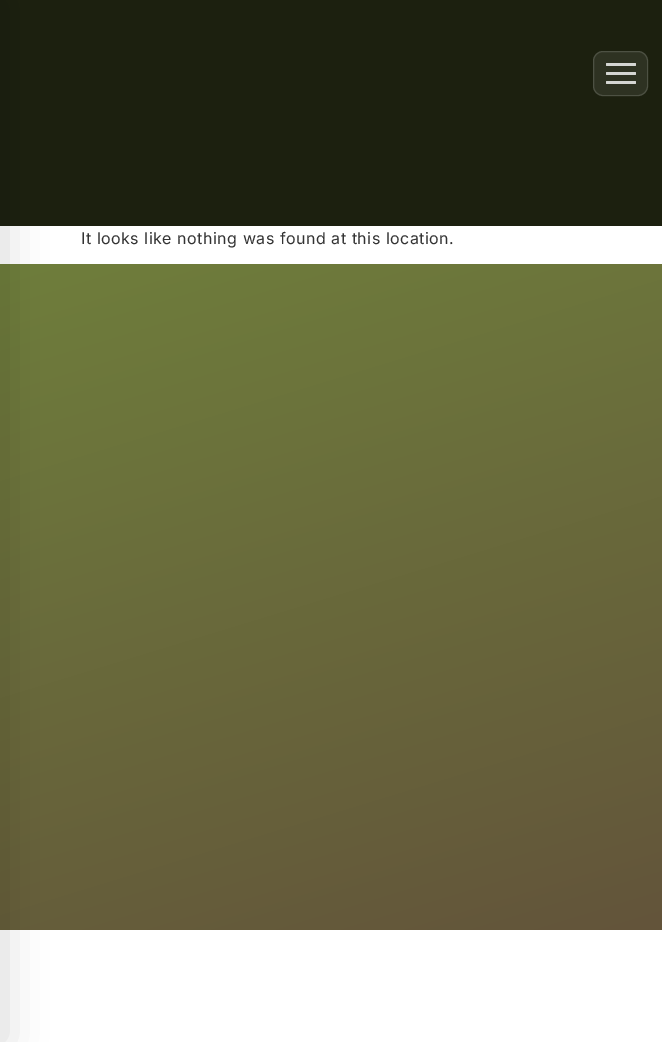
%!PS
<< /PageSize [662 1042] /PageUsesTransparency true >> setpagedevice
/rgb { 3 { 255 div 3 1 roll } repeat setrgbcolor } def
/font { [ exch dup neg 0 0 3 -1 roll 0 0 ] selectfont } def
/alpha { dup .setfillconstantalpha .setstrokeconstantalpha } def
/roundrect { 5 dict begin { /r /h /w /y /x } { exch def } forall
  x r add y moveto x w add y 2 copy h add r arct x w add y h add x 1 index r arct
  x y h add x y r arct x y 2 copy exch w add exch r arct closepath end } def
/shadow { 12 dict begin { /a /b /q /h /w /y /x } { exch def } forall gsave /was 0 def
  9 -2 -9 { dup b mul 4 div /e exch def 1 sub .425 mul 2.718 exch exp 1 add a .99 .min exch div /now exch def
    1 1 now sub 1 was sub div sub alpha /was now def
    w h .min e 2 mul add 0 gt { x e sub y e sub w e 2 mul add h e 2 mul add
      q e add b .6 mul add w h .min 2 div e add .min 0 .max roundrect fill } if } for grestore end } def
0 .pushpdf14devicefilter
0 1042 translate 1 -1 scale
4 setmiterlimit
255 255 255 rgb
0 0 662 1042 rectfill
28 32 15 rgb
0 0 662 226 rectfill
gsave 0 264 moveto 662 264 lineto 662 930 lineto 0 930 lineto closepath clip newpath
<< /ShadingType 2 /ColorSpace /DeviceRGB /Coords [210 200 501 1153] /Extend [true true] /Function << /FunctionType 2 /Domain [0 1] /C0 [0.435 0.494 0.235] /C1 [0.38 0.298 0.224] /N 1 >> >> shfill grestore
0 0 0 rgb
-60 0 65 1042 0 20 0.15 shadow
46 50 34 rgb
593 51 55 45 10 roundrect fill
0.15 alpha
255 255 255 rgb
593.5 51.5 54 44 9.5 roundrect stroke
1 alpha
213 214 211 rgb
606 63 30 3 1 roundrect fill
606 72 30 3 1 roundrect fill
606 81 30 3 1 roundrect fill
/Inter-Regular 16 font
51 51 51 rgb
81 244 moveto 0.5 0 (It looks like nothing was found at this location.) ashow
.poppdf14devicefilter showpage
